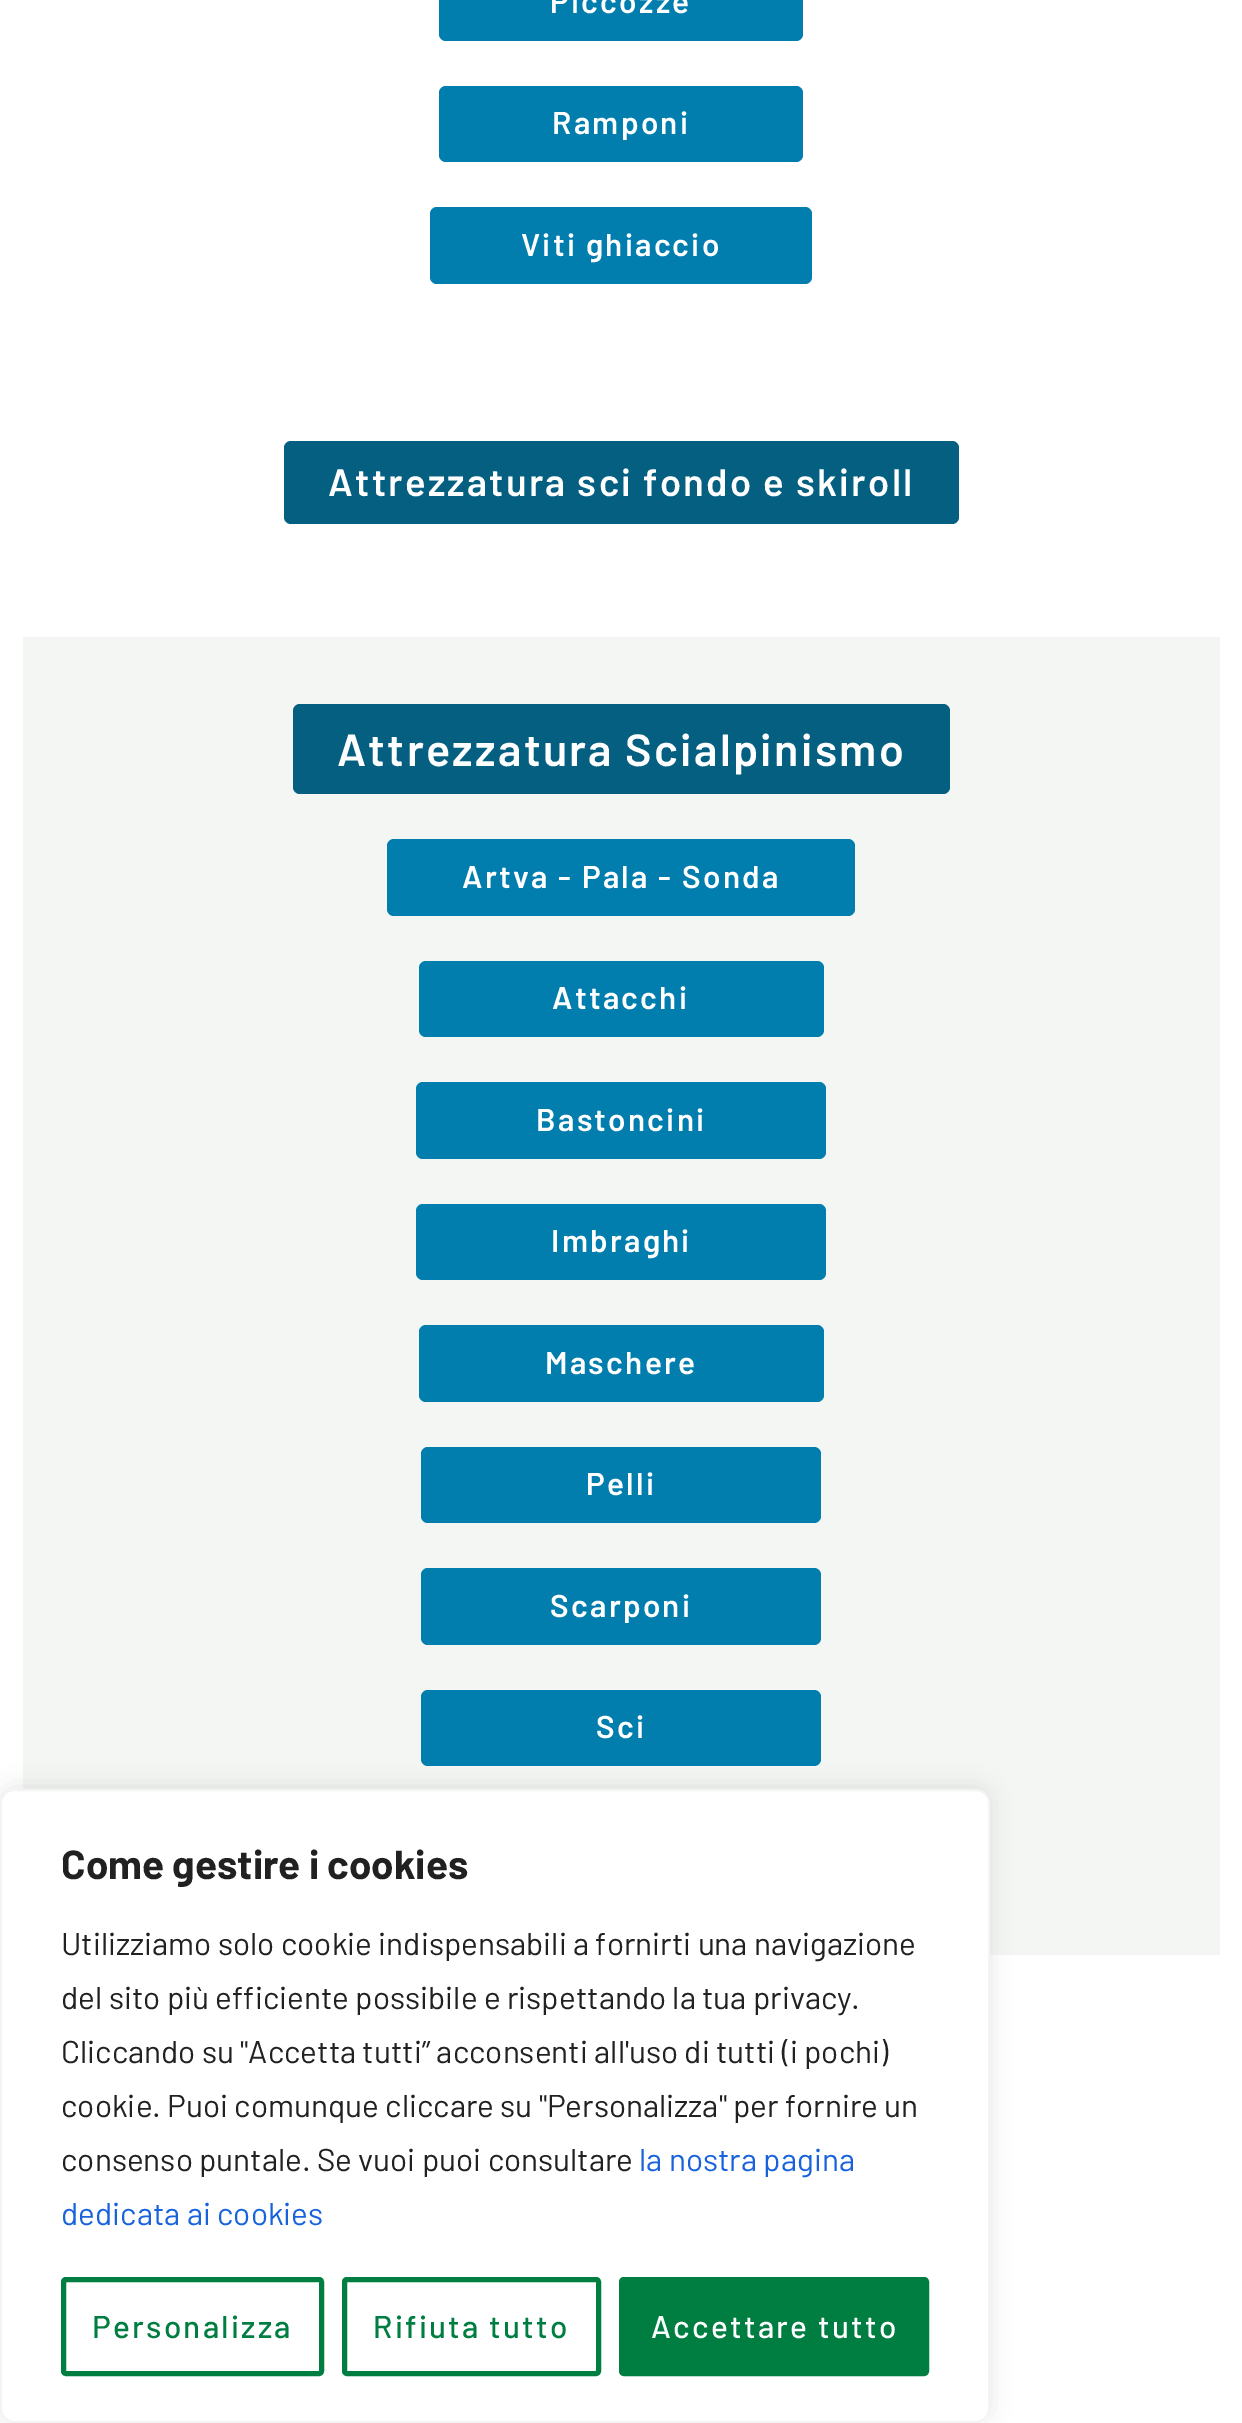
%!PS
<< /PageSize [1242 2423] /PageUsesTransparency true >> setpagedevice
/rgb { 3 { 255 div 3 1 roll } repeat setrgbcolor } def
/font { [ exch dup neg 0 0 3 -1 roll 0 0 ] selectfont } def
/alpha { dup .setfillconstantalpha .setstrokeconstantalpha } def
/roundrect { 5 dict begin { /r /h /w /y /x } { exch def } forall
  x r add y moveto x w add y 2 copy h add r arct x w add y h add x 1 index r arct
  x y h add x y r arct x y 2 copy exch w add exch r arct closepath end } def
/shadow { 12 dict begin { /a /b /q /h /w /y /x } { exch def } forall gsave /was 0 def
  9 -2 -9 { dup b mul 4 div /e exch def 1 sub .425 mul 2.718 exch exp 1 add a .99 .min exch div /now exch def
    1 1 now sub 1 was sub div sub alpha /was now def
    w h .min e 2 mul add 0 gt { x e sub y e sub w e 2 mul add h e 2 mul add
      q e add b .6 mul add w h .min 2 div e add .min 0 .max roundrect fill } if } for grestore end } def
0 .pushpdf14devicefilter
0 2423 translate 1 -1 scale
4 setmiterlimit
255 255 255 rgb
0 0 1242 2423 rectfill
1 126 174 rgb
439 -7 364 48 7 roundrect fill
439 86 364 76 7 roundrect fill
430 207 382 77 7 roundrect fill
5 95 129 rgb
284 441 675 83 7 roundrect fill
243 246 243 rgb
23 637 1197 1318 rectfill
5 95 129 rgb
293 704 657 90 7 roundrect fill
1 126 174 rgb
387 839 468 77 7 roundrect fill
419 961 405 76 7 roundrect fill
416 1082 410 77 7 roundrect fill
416 1204 410 76 7 roundrect fill
419 1325 405 77 7 roundrect fill
421 1447 400 76 7 roundrect fill
421 1568 400 77 7 roundrect fill
421 1690 400 76 7 roundrect fill
172 171 171 rgb
0 1787 990 634 14 11 0.3 shadow
255 255 255 rgb
1 1790 988 632 13 roundrect gsave fill grestore
244 244 244 rgb
2 setlinewidth
stroke
0 126 65 rgb
5 setlinewidth
63.5 2279.5 258 94 2.5 roundrect stroke
344.5 2279.5 254 94 2.5 roundrect stroke
621.5 2279.5 305 94 2.5 roundrect gsave fill grestore
stroke
/Barlow-SemiBold 31.5 font
255 255 255 rgb
550 13 moveto 2.25 0 (Piccozze) ashow
552 134 moveto 2.25 0 (Ramponi) ashow
521 256 moveto 2.25 0 (Viti ghiaccio) ashow
/Barlow-SemiBold 38.25 font
328 496 moveto 2.25 0 (Attrezzatura sci fondo e skiroll) ashow
/Barlow-SemiBold 45 font
337 766 moveto 2.25 0 (Attrezzatura Scialpinismo) ashow
/Barlow-SemiBold 31.5 font
462 888 moveto 2.25 0 (Artva - Pala - Sonda) ashow
552 1009 moveto 2.25 0 (Attacchi) ashow
536 1131 moveto 2.25 0 (Bastoncini) ashow
551 1252 moveto 2.25 0 (Imbraghi) ashow
545 1374 moveto 2.25 0 (Maschere) ashow
586 1495 moveto 2.25 0 (Pelli) ashow
550 1617 moveto 2.25 0 (Scarponi) ashow
596 1738 moveto 2.25 0 (Sci) ashow
/Barlow-Bold 40.5 font
33 33 33 rgb
61 1879 moveto (Come gestire i cookies) show
/Barlow-Regular 31.5 font
[
  [(Utilizziamo solo cookie indispensabili a fornirti una navigazione) 61 1955]
  [(del sito più efficiente possibile e rispettando la tua privacy.) 61 2009]
  [(Cliccando su "Accetta tutti” acconsenti all'uso di tutti \(i pochi\)) 61 2063]
  [(cookie. Puoi comunque cliccare su "Personalizza" per fornire un) 61 2117]
  [(consenso puntale. Se vuoi puoi consultare) 61 2171]
] { aload pop moveto show } forall
24 99 220 rgb
639 2171 moveto (la nostra pagina) show
61 2225 moveto (dedicata ai cookies) show
/Barlow-Medium 31.5 font
0 126 65 rgb
92 2338 moveto 2.25 0 (Personalizza) ashow
373 2338 moveto 2.25 0 (Rifiuta tutto) ashow
255 255 255 rgb
651 2338 moveto 2.25 0 (Accettare tutto) ashow
.poppdf14devicefilter showpage
